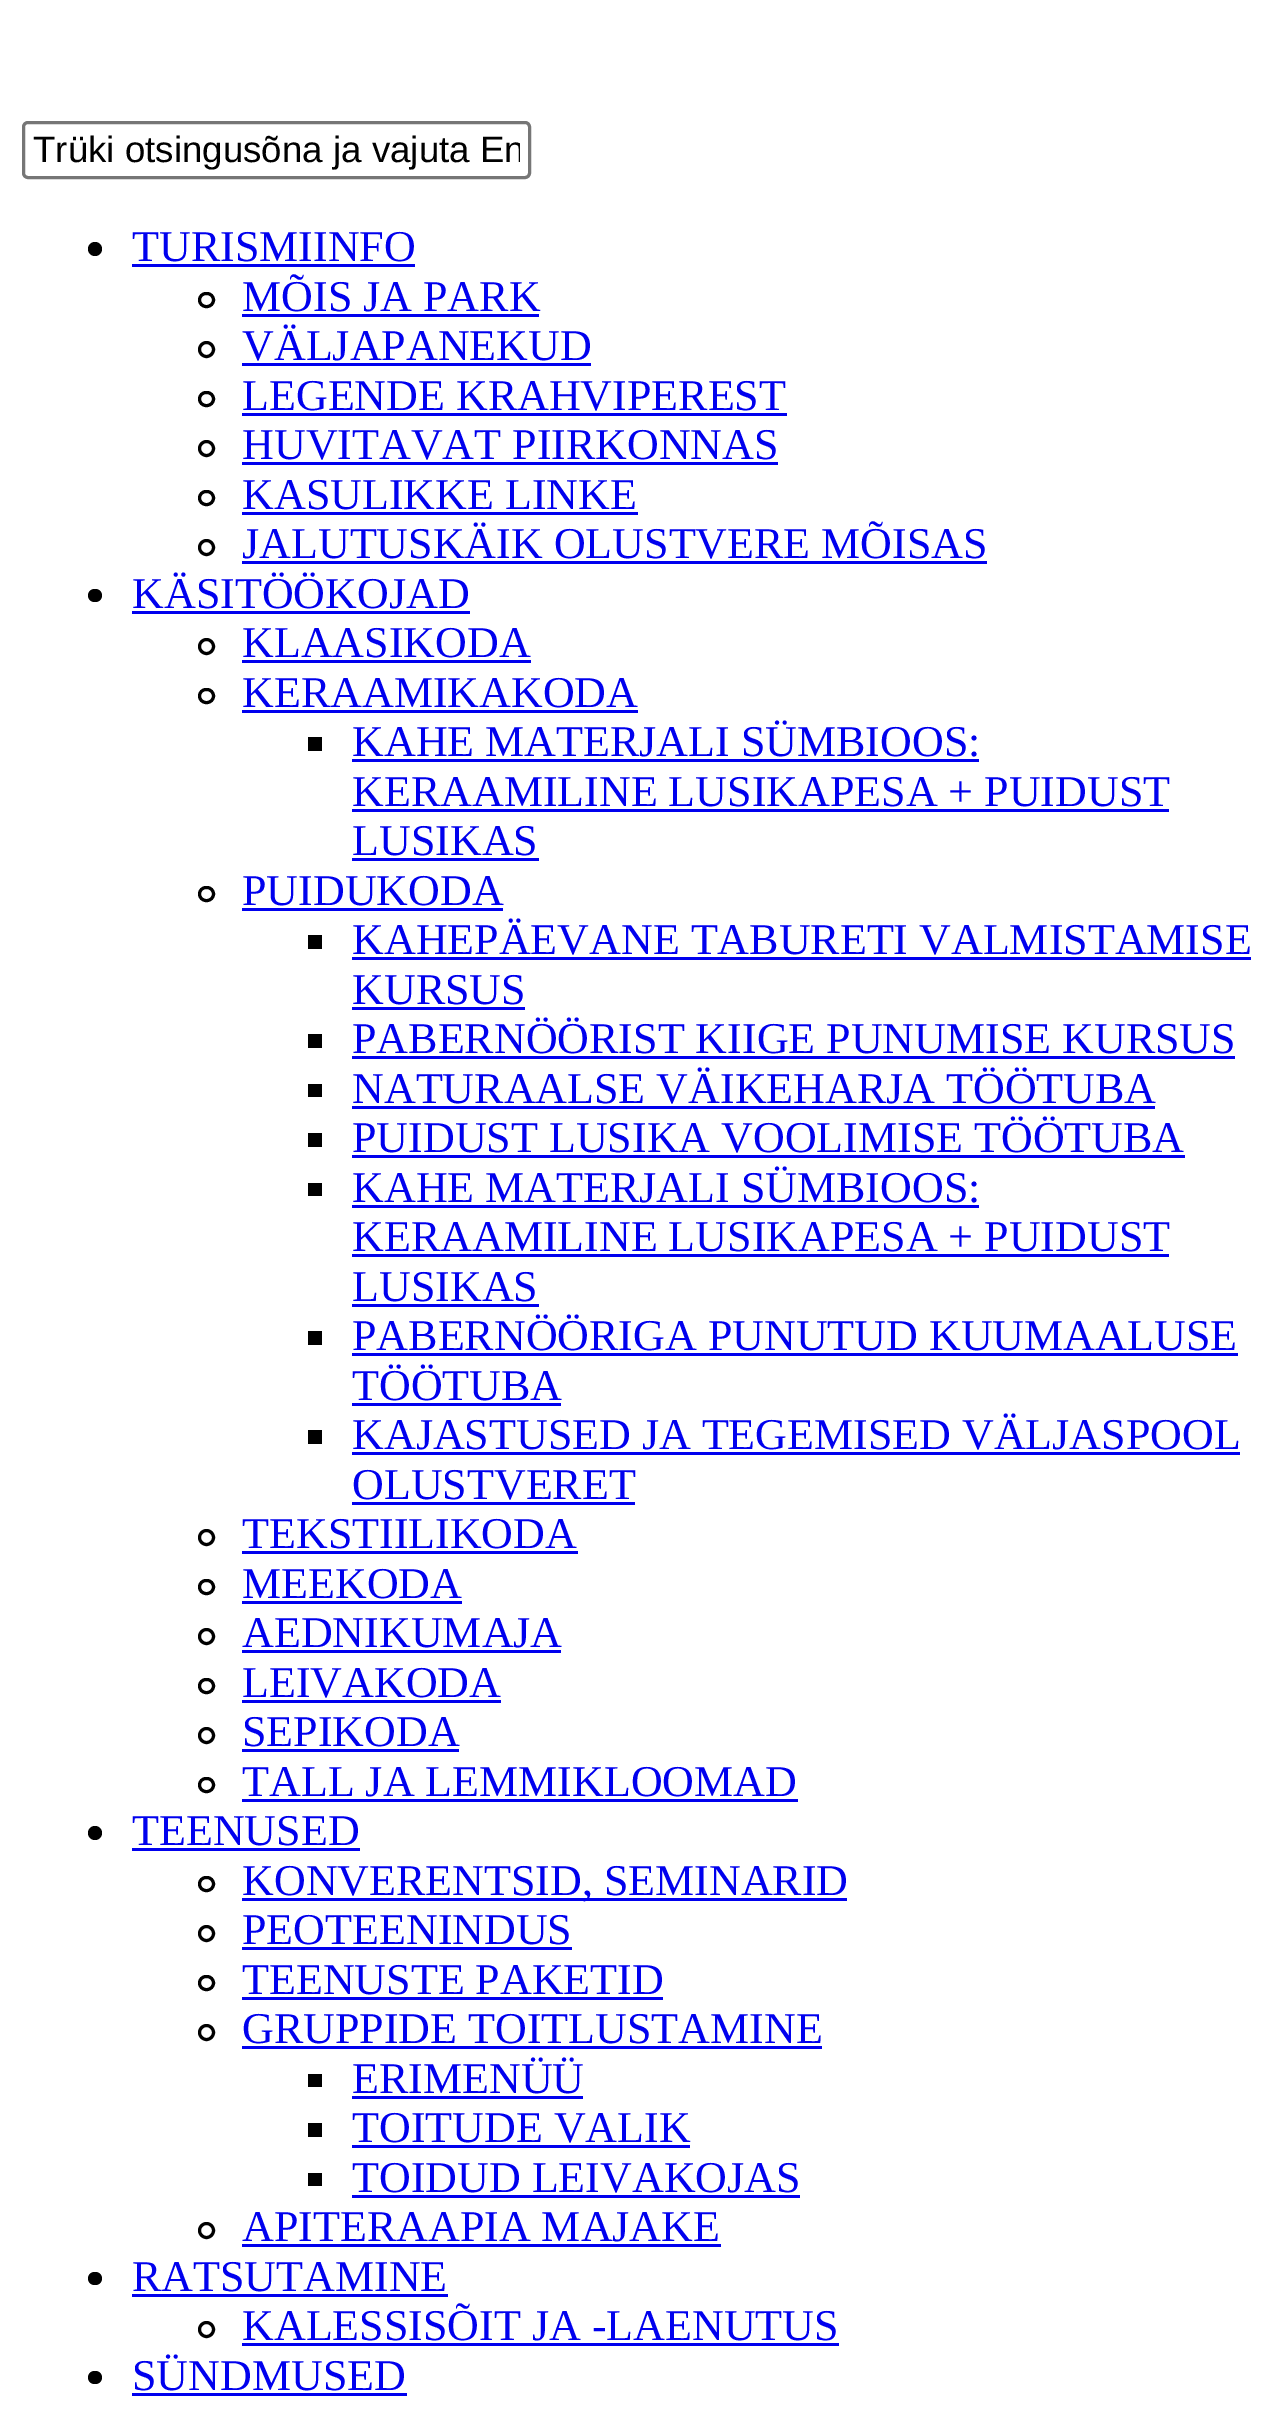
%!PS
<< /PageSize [1281 2417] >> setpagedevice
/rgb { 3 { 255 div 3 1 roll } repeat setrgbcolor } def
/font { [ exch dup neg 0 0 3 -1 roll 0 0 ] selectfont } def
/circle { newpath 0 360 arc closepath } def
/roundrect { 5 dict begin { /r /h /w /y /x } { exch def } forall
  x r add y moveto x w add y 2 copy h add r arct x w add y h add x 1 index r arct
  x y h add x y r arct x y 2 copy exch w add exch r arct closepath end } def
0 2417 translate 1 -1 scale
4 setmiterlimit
255 255 255 rgb
0 0 1281 2417 rectfill
118 118 118 rgb
3 setlinewidth
23.5 122.5 506 55 4.5 roundrect stroke
0 0 0 rgb
95 249 7 circle fill
0 0 238 rgb
132 264 283 3 rectfill
0 0 0 rgb
199.5 293.5 14 13 6.5 roundrect stroke
0 0 238 rgb
242 314 297 3 rectfill
0 0 0 rgb
206.5 349.5 7 circle stroke
0 0 238 rgb
242 363 349 3 rectfill
0 0 0 rgb
199.5 392.5 14 13 6.5 roundrect stroke
0 0 238 rgb
242 413 545 3 rectfill
0 0 0 rgb
206.5 448.5 7 circle stroke
0 0 238 rgb
242 462 536 3 rectfill
0 0 0 rgb
199.5 491.5 14 13 6.5 roundrect stroke
0 0 238 rgb
242 512 396 3 rectfill
0 0 0 rgb
206.5 547.5 7 circle stroke
0 0 238 rgb
242 561 745 3 rectfill
0 0 0 rgb
88 589 14 13 6.5 roundrect fill
0 0 238 rgb
132 611 338 3 rectfill
0 0 0 rgb
206.5 646.5 7 circle stroke
0 0 238 rgb
242 660 289 3 rectfill
0 0 0 rgb
199.5 689.5 14 13 6.5 roundrect stroke
[
  [242 710 396 3 0 0 238]
  [308 737 14 14 0 0 0]
  [352 759 627 3 0 0 238]
  [352 809 817 3 0 0 238]
  [352 858 187 3 0 0 238]
] { aload pop rgb rectfill } forall
0 0 0 rgb
199.5 887.5 14 13 6.5 roundrect stroke
[
  [242 908 261 3 0 0 238]
  [308 935 14 14 0 0 0]
  [352 957 899 3 0 0 238]
  [352 1007 173 3 0 0 238]
  [308 1034 14 14 0 0 0]
  [352 1056 883 3 0 0 238]
  [308 1084 14 13 0 0 0]
  [352 1106 803 3 0 0 238]
  [308 1133 14 14 0 0 0]
  [352 1155 833 3 0 0 238]
  [308 1183 14 13 0 0 0]
  [352 1205 627 3 0 0 238]
  [352 1254 817 3 0 0 238]
  [352 1304 187 3 0 0 238]
  [308 1331 14 14 0 0 0]
  [352 1353 886 3 0 0 238]
  [352 1403 209 3 0 0 238]
  [308 1430 14 14 0 0 0]
  [352 1452 888 3 0 0 238]
  [352 1502 283 3 0 0 238]
] { aload pop rgb rectfill } forall
0 0 0 rgb
206.5 1537.5 7 circle stroke
0 0 238 rgb
242 1551 336 3 rectfill
0 0 0 rgb
199.5 1580.5 14 13 6.5 roundrect stroke
0 0 238 rgb
242 1601 220 3 rectfill
0 0 0 rgb
206.5 1636.5 7 circle stroke
0 0 238 rgb
242 1650 319 3 rectfill
0 0 0 rgb
199.5 1679.5 14 13 6.5 roundrect stroke
0 0 238 rgb
242 1700 259 3 rectfill
0 0 0 rgb
206.5 1735.5 7 circle stroke
0 0 238 rgb
242 1749 217 3 rectfill
0 0 0 rgb
199.5 1778.5 14 13 6.5 roundrect stroke
0 0 238 rgb
242 1799 556 3 rectfill
0 0 0 rgb
95 1833 7 circle fill
0 0 238 rgb
132 1848 228 3 rectfill
0 0 0 rgb
199.5 1877.5 14 13 6.5 roundrect stroke
0 0 238 rgb
242 1898 605 3 rectfill
0 0 0 rgb
206.5 1933.5 7 circle stroke
0 0 238 rgb
242 1947 330 3 rectfill
0 0 0 rgb
199.5 1976.5 14 13 6.5 roundrect stroke
0 0 238 rgb
242 1997 421 3 rectfill
0 0 0 rgb
206.5 2032.5 7 circle stroke
[
  [242 2046 580 3 0 0 238]
  [308 2074 14 13 0 0 0]
  [352 2096 231 3 0 0 238]
  [308 2123 14 14 0 0 0]
  [352 2145 338 3 0 0 238]
  [308 2173 14 13 0 0 0]
  [352 2195 448 3 0 0 238]
] { aload pop rgb rectfill } forall
0 0 0 rgb
206.5 2230.5 7 circle stroke
0 0 238 rgb
242 2244 479 3 rectfill
0 0 0 rgb
88 2272 14 13 6.5 roundrect fill
0 0 238 rgb
132 2294 316 3 rectfill
0 0 0 rgb
206.5 2329.5 7 circle stroke
0 0 238 rgb
242 2343 597 3 rectfill
0 0 0 rgb
88 2371 14 13 6.5 roundrect fill
0 0 238 rgb
132 2393 275 3 rectfill
gsave
33 129 487 42 rectclip
/LiberationSans-Regular 36.7 font
0 0 0 rgb
33 162 moveto (Trüki otsingusõna ja vajuta En) show
grestore
/LiberationSerif-Regular 44 font
[
  [(TURISMIINFO) 132 261]
  [(MÕIS JA PARK) 242 311]
  [(VÄLJAPANEKUD) 242 360]
  [(LEGENDE KRAHVIPEREST) 242 410]
  [(HUVITAVAT PIIRKONNAS) 242 459]
  [(KASULIKKE LINKE) 242 509]
  [(JALUTUSKÄIK OLUSTVERE MÕISAS) 242 558]
  [(KÄSITÖÖKOJAD) 132 608]
  [(KLAASIKODA) 242 657]
  [(KERAAMIKAKODA) 242 707]
  [(KAHE MATERJALI SÜMBIOOS:) 352 756]
  [(KERAAMILINE LUSIKAPESA + PUIDUST) 352 806]
  [(LUSIKAS) 352 855]
  [(PUIDUKODA) 242 905]
  [(KAHEPÄEVANE TABURETI VALMISTAMISE) 352 954]
  [(KURSUS) 352 1004]
  [(PABERNÖÖRIST KIIGE PUNUMISE KURSUS) 352 1053]
  [(NATURAALSE VÄIKEHARJA TÖÖTUBA) 352 1103]
  [(PUIDUST LUSIKA VOOLIMISE TÖÖTUBA) 352 1152]
  [(KAHE MATERJALI SÜMBIOOS:) 352 1202]
  [(KERAAMILINE LUSIKAPESA + PUIDUST) 352 1251]
  [(LUSIKAS) 352 1301]
  [(PABERNÖÖRIGA PUNUTUD KUUMAALUSE) 352 1350]
  [(TÖÖTUBA) 352 1400]
  [(KAJASTUSED JA TEGEMISED VÄLJASPOOL) 352 1449]
  [(OLUSTVERET) 352 1499]
  [(TEKSTIILIKODA) 242 1548]
  [(MEEKODA) 242 1598]
  [(AEDNIKUMAJA) 242 1647]
  [(LEIVAKODA) 242 1697]
  [(SEPIKODA) 242 1746]
  [(TALL JA LEMMIKLOOMAD) 242 1796]
  [(TEENUSED) 132 1845]
  [(KONVERENTSID, SEMINARID) 242 1895]
  [(PEOTEENINDUS) 242 1944]
  [(TEENUSTE PAKETID) 242 1994]
  [(GRUPPIDE TOITLUSTAMINE) 242 2043]
  [(ERIMENÜÜ) 352 2093]
  [(TOITUDE VALIK) 352 2142]
  [(TOIDUD LEIVAKOJAS) 352 2192]
  [(APITERAAPIA MAJAKE) 242 2241]
  [(RATSUTAMINE) 132 2291]
  [(KALESSISÕIT JA -LAENUTUS) 242 2340]
  [(SÜNDMUSED) 132 2390]
] { aload pop moveto show } forall
showpage
